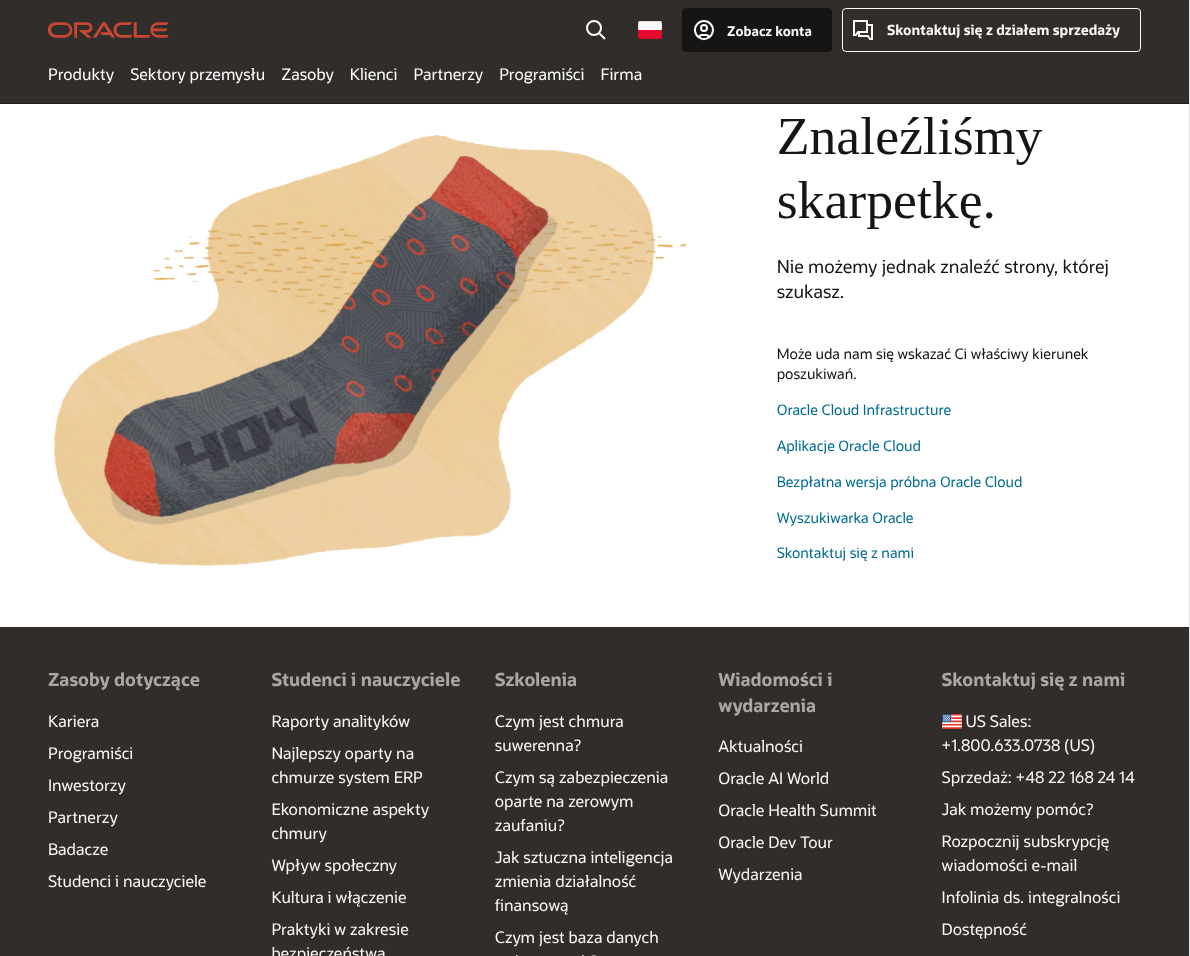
%!PS
<< /PageSize [1190 956] >> setpagedevice
/rgb { 3 { 255 div 3 1 roll } repeat setrgbcolor } def
/picture { 5 dict begin { /h /w /y /x /name } { exch def } forall
  gsave x y translate w h scale
  w h 8 [w 0 0 h 0 0] name (r) file false 3 colorimage grestore end } def
0 956 translate 1 -1 scale
4 setmiterlimit
218 222 224 rgb
0 0 1190 956 rectfill
(img/1.rgb) 0 0 1189 956 picture
showpage
